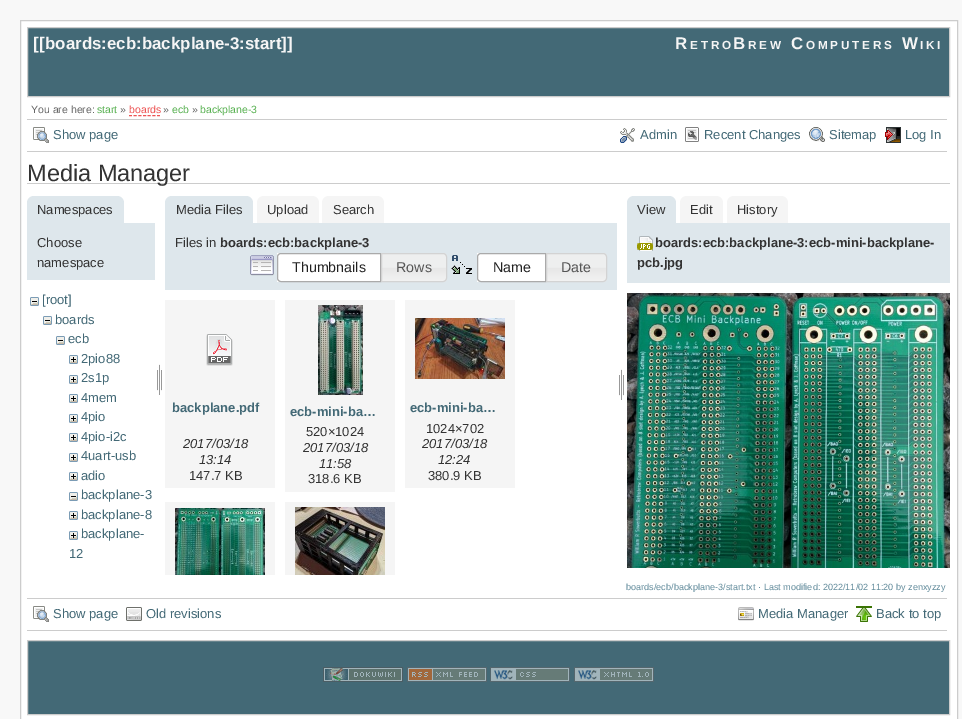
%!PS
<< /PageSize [962 719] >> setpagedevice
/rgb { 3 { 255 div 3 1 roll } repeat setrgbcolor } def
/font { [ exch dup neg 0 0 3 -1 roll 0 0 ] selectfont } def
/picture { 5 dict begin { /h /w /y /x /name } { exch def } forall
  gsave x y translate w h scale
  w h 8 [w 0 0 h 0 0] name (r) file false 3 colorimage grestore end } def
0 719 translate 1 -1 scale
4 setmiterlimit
248 248 248 rgb
0 0 962 719 rectfill
255 255 255 rgb
20.5 20.5 moveto 957.5 20.5 lineto 957.5 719.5 lineto 20.5 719.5 lineto closepath gsave fill grestore
204 204 204 rgb
stroke
67 105 118 rgb
27.5 27.5 moveto 949.5 27.5 lineto 949.5 96.5 lineto 27.5 96.5 lineto closepath gsave fill grestore
204 204 204 rgb
stroke
237 83 83 rgb
[3 1.67] 0 setdash
129 115.5 moveto 160 115.5 lineto stroke
204 204 204 rgb
27 119 920 1 rectfill
27 151 920 1 rectfill
(img/1.rgb) 33 127 16 16 picture
(img/2.rgb) 620 128 15 15 picture
(img/3.rgb) 685 127 14 15 picture
(img/4.rgb) 809 127 16 15 picture
(img/5.rgb) 885 127 16 16 picture
27 183 923 1 rectfill
222 231 236 rgb
34 196 moveto 117 196 lineto 121 196 124 199 124 203 curveto 124 223 lineto 27 223 lineto 27 203 lineto 27 199 30 196 34 196 curveto closepath fill
27 223 128 57 rectfill
(img/6.rgb) 30 297 9 9 picture
(img/6.rgb) 43 316 9 9 picture
(img/6.rgb) 56 336 9 9 picture
(img/7.rgb) 69 355 9 9 picture
(img/7.rgb) 69 375 9 9 picture
(img/7.rgb) 69 394 9 9 picture
(img/7.rgb) 69 414 9 9 picture
(img/7.rgb) 69 433 9 9 picture
(img/7.rgb) 69 453 9 9 picture
(img/7.rgb) 69 472 9 9 picture
(img/6.rgb) 69 492 9 9 picture
(img/7.rgb) 69 511 9 9 picture
(img/7.rgb) 69 531 9 9 picture
(img/8.rgb) 157 364 5 31 picture
172 196 moveto 246 196 lineto 250 196 253 199 253 203 curveto 253 223 lineto 165 223 lineto 165 203 lineto 165 199 168 196 172 196 curveto closepath fill
245 245 245 rgb
264 196 moveto 312 196 lineto 316 196 319 199 319 203 curveto 319 223 lineto 257 223 lineto 257 203 lineto 257 199 260 196 264 196 curveto closepath fill
329 196 moveto 377 196 lineto 381 196 384 199 384 203 curveto 384 223 lineto 322 223 lineto 322 203 lineto 322 199 325 196 329 196 curveto closepath fill
222 231 236 rgb
165 223 452 67 rectfill
(img/9.rgb) 250 255 24 21 picture
255 255 255 rgb
277 253 103 29 rectfill
170 170 170 rgb
[] 0 setdash
281 253.5 moveto 380.5 253.5 lineto 380.5 281.5 lineto 281 281.5 lineto 279 281.5 277.5 280 277.5 278 curveto 277.5 257 lineto 277.5 255 279 253.5 281 253.5 curveto closepath stroke
(img/10.rgb) 382 253 65 29 picture
211 211 211 rgb
381.5 253.5 moveto 443 253.5 lineto 445 253.5 446.5 255 446.5 257 curveto 446.5 278 lineto 446.5 280 445 281.5 443 281.5 curveto 381.5 281.5 lineto closepath stroke
(img/11.rgb) 451 255 21 19 picture
255 255 255 rgb
477 253 68 29 rectfill
170 170 170 rgb
481 253.5 moveto 545.5 253.5 lineto 545.5 281.5 lineto 481 281.5 lineto 479 281.5 477.5 280 477.5 278 curveto 477.5 257 lineto 477.5 255 479 253.5 481 253.5 curveto closepath stroke
(img/12.rgb) 547 253 60 29 picture
211 211 211 rgb
546.5 253.5 moveto 603 253.5 lineto 605 253.5 606.5 255 606.5 257 curveto 606.5 278 lineto 606.5 280 605 281.5 603 281.5 curveto 546.5 281.5 lineto closepath stroke
(img/8.rgb) 619 369 5 31 picture
245 245 245 rgb
165 300 110 188 rectfill
(img/13.rgb) 206 334 27 32 picture
285 300 110 192 rectfill
(img/14.rgb) 318 305 45 90 picture
405 300 110 188 rectfill
(img/15.rgb) 415 318 90 61 picture
165 502 110 73 rectfill
(img/16.rgb) 175 508 90 67 picture
285 502 110 73 rectfill
(img/17.rgb) 295 507 90 68 picture
222 231 236 rgb
634 196 moveto 669 196 lineto 673 196 676 199 676 203 curveto 676 223 lineto 627 223 lineto 627 203 lineto 627 199 630 196 634 196 curveto closepath fill
245 245 245 rgb
687 196 moveto 716 196 lineto 720 196 723 199 723 203 curveto 723 223 lineto 680 223 lineto 680 203 lineto 680 199 683 196 687 196 curveto closepath fill
734 196 moveto 781 196 lineto 785 196 788 199 788 203 curveto 788 223 lineto 727 223 lineto 727 203 lineto 727 199 730 196 734 196 curveto closepath fill
222 231 236 rgb
627 223 323 60 rectfill
(img/18.rgb) 637 236 16 15 picture
(img/19.rgb) 627 293 323 275 picture
204 204 204 rgb
27 598 920 1 rectfill
27 630 920 1 rectfill
(img/1.rgb) 33 606 16 16 picture
(img/20.rgb) 126 607 16 14 picture
(img/21.rgb) 738 607 16 14 picture
(img/22.rgb) 856 606 16 16 picture
67 105 118 rgb
27.5 640.5 moveto 949.5 640.5 lineto 949.5 714.5 lineto 27.5 714.5 lineto closepath gsave fill grestore
204 204 204 rgb
stroke
(img/23.rgb) 323 667 80 15 picture
(img/24.rgb) 407 667 80 15 picture
(img/25.rgb) 490 667 80 15 picture
(img/26.rgb) 574 667 80 15 picture
/LiberationSans-Bold 16.9 font
245 245 245 rgb
[
  [([[) 33 49]
  [(boards:ecb:backplane-3:start) 45 49]
  [(]]) 281 49]
] { aload pop moveto show } forall
675 49 moveto 2.75 0 (R) ashow
/LiberationSans-Bold 11.75 font
690 49 moveto 2.75 0 (ETRO) ashow
/LiberationSans-Bold 16.9 font
733 49 moveto 2.75 0 (B) ashow
/LiberationSans-Bold 11.75 font
748 49 moveto 2.75 0 (REW) ashow
/LiberationSans-Bold 16.9 font
791 49 moveto 2.75 0 (C) ashow
/LiberationSans-Bold 11.75 font
806 49 moveto 2.75 0 (OMPUTERS) ashow
/LiberationSans-Bold 16.9 font
902 49 moveto 2.75 0 (W) ashow
/LiberationSans-Bold 11.75 font
920 49 moveto 2.75 0 (IKI) ashow
/LiberationSans-Regular 10.5 font
102 102 102 rgb
31 113 moveto (You are here:) show
86 176 79 rgb
97 113 moveto (start) show
102 102 102 rgb
120 113 moveto (») show
237 83 83 rgb
129 113 moveto (boards) show
102 102 102 rgb
163 113 moveto (») show
86 176 79 rgb
172 113 moveto (ecb) show
102 102 102 rgb
192 113 moveto (») show
86 176 79 rgb
200 113 moveto (backplane-3) show
/LiberationSans-Regular 13 font
67 105 118 rgb
[
  [(Show page) 53 139]
  [(Admin) 640 139]
  [(Recent Changes) 704 139]
  [(Sitemap) 829 139]
  [(Log In) 905 139]
] { aload pop moveto show } forall
/LiberationSans-Regular 23.5 font
51 51 51 rgb
27 181 moveto (Media Manager) show
/LiberationSans-Regular 13 font
[
  [(Namespaces) 37 214]
  [(Choose) 37 247]
  [(namespace) 37 267]
] { aload pop moveto show } forall
67 105 118 rgb
[
  [([root]) 42 304]
  [(boards) 55 324]
  [(ecb) 68 343]
  [(2pio88) 81 363]
  [(2s1p) 81 382]
  [(4mem) 81 402]
  [(4pio) 81 421]
  [(4pio-i2c) 81 441]
  [(4uart-usb) 81 460]
  [(adio) 81 480]
  [(backplane-3) 81 499]
  [(backplane-8) 81 519]
  [(backplane-) 81 538]
  [(12) 69 558]
] { aload pop moveto show } forall
51 51 51 rgb
[
  [(Media Files) 176 214]
  [(Upload) 267 214]
  [(Search) 333 214]
  [(Files in) 175 247]
] { aload pop moveto show } forall
/LiberationSans-Bold 13 font
220 247 moveto (boards:ecb:backplane-3) show
/LiberationSans-Regular 14.25 font
33 33 33 rgb
292 272 moveto (Thumbnails) show
85 85 85 rgb
396 272 moveto (Rows) show
33 33 33 rgb
493 272 moveto (Name) show
85 85 85 rgb
561 272 moveto (Date) show
/LiberationSans-Bold 13 font
67 105 118 rgb
172 412 moveto (backplane.pdf) show
/LiberationSans-Italic 13 font
51 51 51 rgb
183 448 moveto (2017/03/18) show
199 464 moveto (13:14) show
/LiberationSans-Regular 13 font
189 480 moveto (147.7 KB) show
/LiberationSans-Bold 13 font
67 105 118 rgb
290 416 moveto (ecb-mini-ba…) show
/LiberationSans-Regular 13 font
51 51 51 rgb
306 436 moveto (520×1024) show
/LiberationSans-Italic 13 font
303 452 moveto (2017/03/18) show
319 468 moveto (11:58) show
/LiberationSans-Regular 13 font
308 483 moveto (318.6 KB) show
/LiberationSans-Bold 13 font
67 105 118 rgb
410 412 moveto (ecb-mini-ba…) show
/LiberationSans-Regular 13 font
51 51 51 rgb
426 433 moveto (1024×702) show
/LiberationSans-Italic 13 font
422 448 moveto (2017/03/18) show
438 464 moveto (12:24) show
/LiberationSans-Regular 13 font
[
  [(380.9 KB) 428 480]
  [(View) 637 214]
  [(Edit) 690 214]
  [(History) 737 214]
] { aload pop moveto show } forall
/LiberationSans-Bold 13 font
655 247 moveto (boards:ecb:backplane-3:ecb-mini-backplane-) show
637 267 moveto (pcb.jpg) show
/LiberationSans-Regular 9.1 font
99 140 156 rgb
626 590 moveto (boards/ecb/backplane-3/start.txt · Last modified: 2022/11/02 11:20 by zenxyzzy) show
/LiberationSans-Regular 13 font
67 105 118 rgb
[
  [(Show page) 53 618]
  [(Old revisions) 146 618]
  [(Media Manager) 758 618]
  [(Back to top) 876 618]
] { aload pop moveto show } forall
showpage
